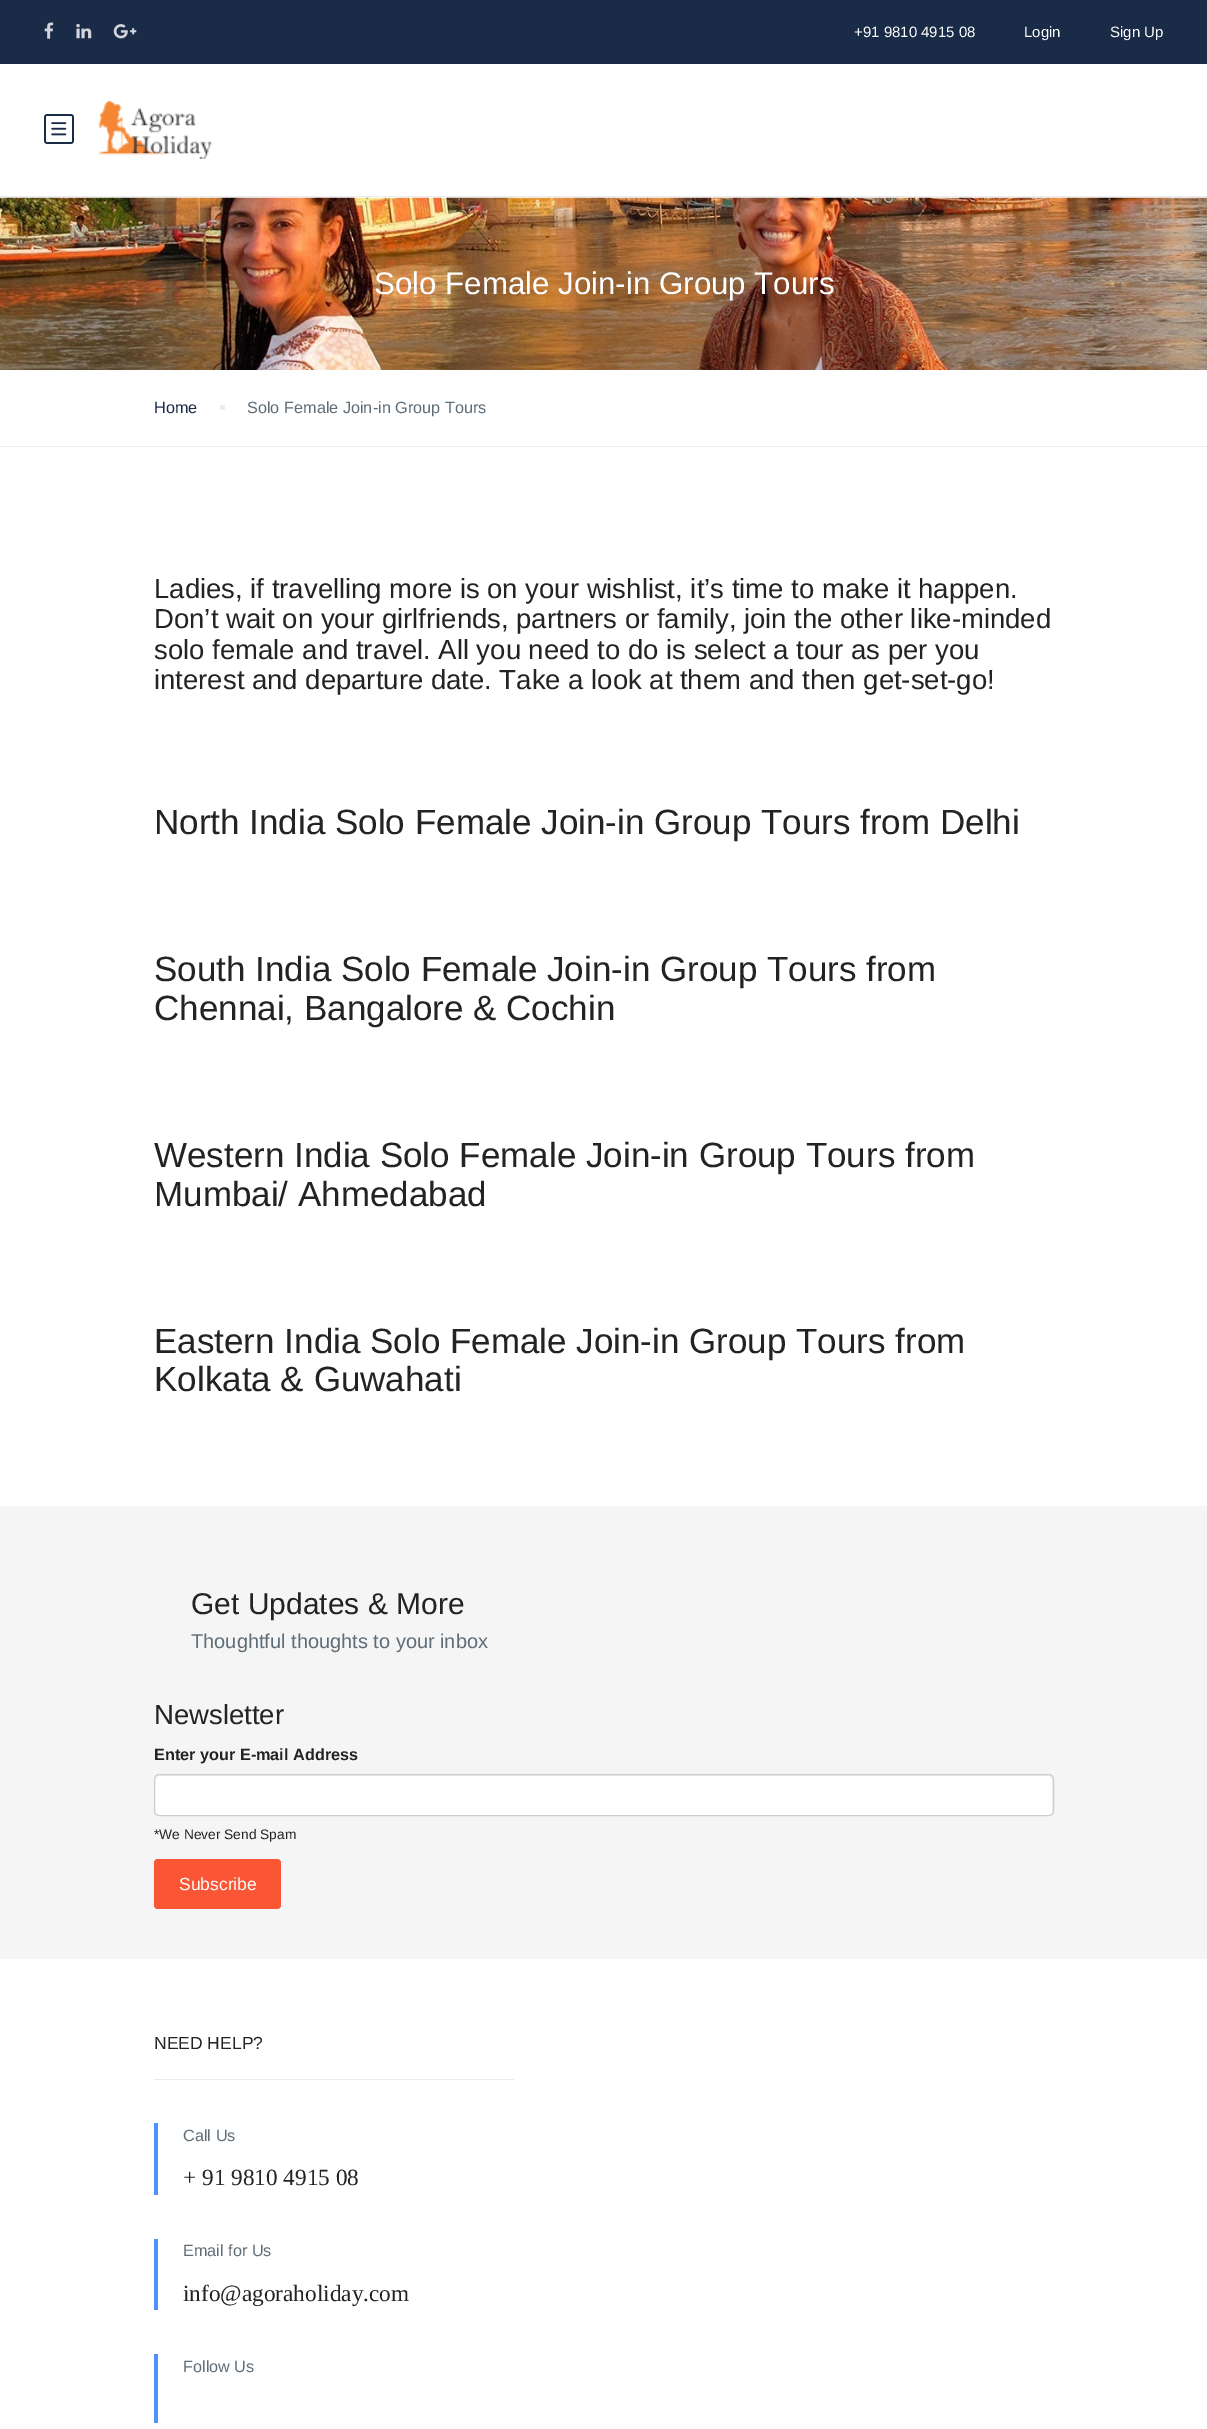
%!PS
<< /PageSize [1207 2429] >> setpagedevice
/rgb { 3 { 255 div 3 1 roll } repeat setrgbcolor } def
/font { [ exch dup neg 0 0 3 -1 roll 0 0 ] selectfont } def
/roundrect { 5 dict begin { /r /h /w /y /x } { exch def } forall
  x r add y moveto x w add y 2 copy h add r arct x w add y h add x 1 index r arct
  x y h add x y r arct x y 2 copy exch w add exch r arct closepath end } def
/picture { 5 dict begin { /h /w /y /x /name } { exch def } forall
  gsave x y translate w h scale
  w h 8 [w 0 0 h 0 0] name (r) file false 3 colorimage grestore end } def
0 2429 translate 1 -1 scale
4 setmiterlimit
255 255 255 rgb
0 0 1207 2429 rectfill
26 43 72 rgb
0 0 1207 64 rectfill
(img/1.rgb) 44 22 10 17 picture
(img/2.rgb) 76 24 16 15 picture
(img/3.rgb) 113 24 24 15 picture
234 238 243 rgb
0 196 1207 1 rectfill
(img/4.rgb) 44 114 30 30 picture
(img/5.rgb) 98 101 114 58 picture
(img/6.rgb) 0 197 1207 173 picture
[
  [0 446 1207 1 234 238 243]
  [220 405 5 5 234 238 243]
  [0 1506 1207 453 245 245 245]
] { aload pop rgb rectfill } forall
255 255 255 rgb
154 1774 900 42 5 roundrect fill
236 236 236 rgb
159 1776 moveto 1049 1776 lineto 1051 1776 1052 1778 1052 1780 curveto 1052 1814 lineto 1053 1813 1053 1812 1053 1811 curveto 1053 1779 lineto 1053 1777 1051 1775 1049 1775 curveto 159 1775 lineto 157 1775 155 1777 155 1779 curveto 155 1780 lineto 155 1778 157 1776 159 1776 curveto closepath fill
204 204 204 rgb
154.5 1774.5 899 41 4.5 roundrect stroke
250 86 54 rgb
154 1859 127 50 4 roundrect fill
[
  [154 2079 360 1 234 234 234]
  [154 2123 4 72 81 145 250]
  [154 2239 4 71 81 145 250]
  [154 2354 4 69 81 145 250]
] { aload pop rgb rectfill } forall
/LiberationSans-Regular 15 font
255 255 255 rgb
[
  [(+91 9810 4915 08) 854 37]
  [(Login) 1024 37]
  [(Sign Up) 1110 37]
] { aload pop moveto show } forall
/LiberationSans-Regular 31.25 font
374 294 moveto (Solo Female Join-in Group Tours) show
/LiberationSans-Regular 16.25 font
26 43 72 rgb
154 413 moveto (Home) show
94 109 119 rgb
247 413 moveto (Solo Female Join-in Group Tours) show
/LiberationSans-Regular 27.5 font
35 35 35 rgb
[
  [(Ladies, if travelling more is on your wishlist, it’s time to make it happen.) 154 598]
  [(Don’t wait on your girlfriends, partners or family, join the other like-minded) 154 628]
  [(solo female and travel. All you need to do is select a tour as per you) 154 659]
  [(interest and departure date. Take a look at them and then get-set-go!) 154 689]
] { aload pop moveto show } forall
/LiberationSans-Regular 35 font
[
  [(North India Solo Female Join-in Group Tours from Delhi) 154 834]
  [(South India Solo Female Join-in Group Tours from) 154 981]
  [(Chennai, Bangalore & Cochin) 154 1020]
  [(Western India Solo Female Join-in Group Tours from) 154 1167]
  [(Mumbai/ Ahmedabad) 154 1206]
  [(Eastern India Solo Female Join-in Group Tours from) 154 1353]
  [(Kolkata & Guwahati) 154 1391]
] { aload pop moveto show } forall
/LiberationSans-Regular 30 font
191 1614 moveto (Get Updates & More) show
/LiberationSans-Regular 20 font
94 109 119 rgb
191 1648 moveto (Thoughtful thoughts to your inbox) show
/LiberationSans-Regular 27.5 font
35 35 35 rgb
154 1724 moveto (Newsletter) show
/LiberationSans-Bold 16.25 font
154 1760 moveto (Enter your E-mail Address) show
/LiberationSans-Regular 13.75 font
154 1839 moveto (*We Never Send Spam) show
/LiberationSans-Regular 17.5 font
255 255 255 rgb
179 1890 moveto (Subscribe) show
35 35 35 rgb
154 2049 moveto (NEED HELP?) show
/LiberationSans-Regular 16.25 font
94 109 119 rgb
183 2141 moveto (Call Us) show
/LiberationSerif-Regular 23.25 font
35 35 35 rgb
183 2185 moveto (+ 91 9810 4915 08) show
/LiberationSans-Regular 16.25 font
94 109 119 rgb
183 2256 moveto (Email for Us) show
/LiberationSerif-Regular 23.25 font
35 35 35 rgb
183 2301 moveto (info@agoraholiday.com) show
/LiberationSans-Regular 16.25 font
94 109 119 rgb
183 2372 moveto (Follow Us) show
showpage
